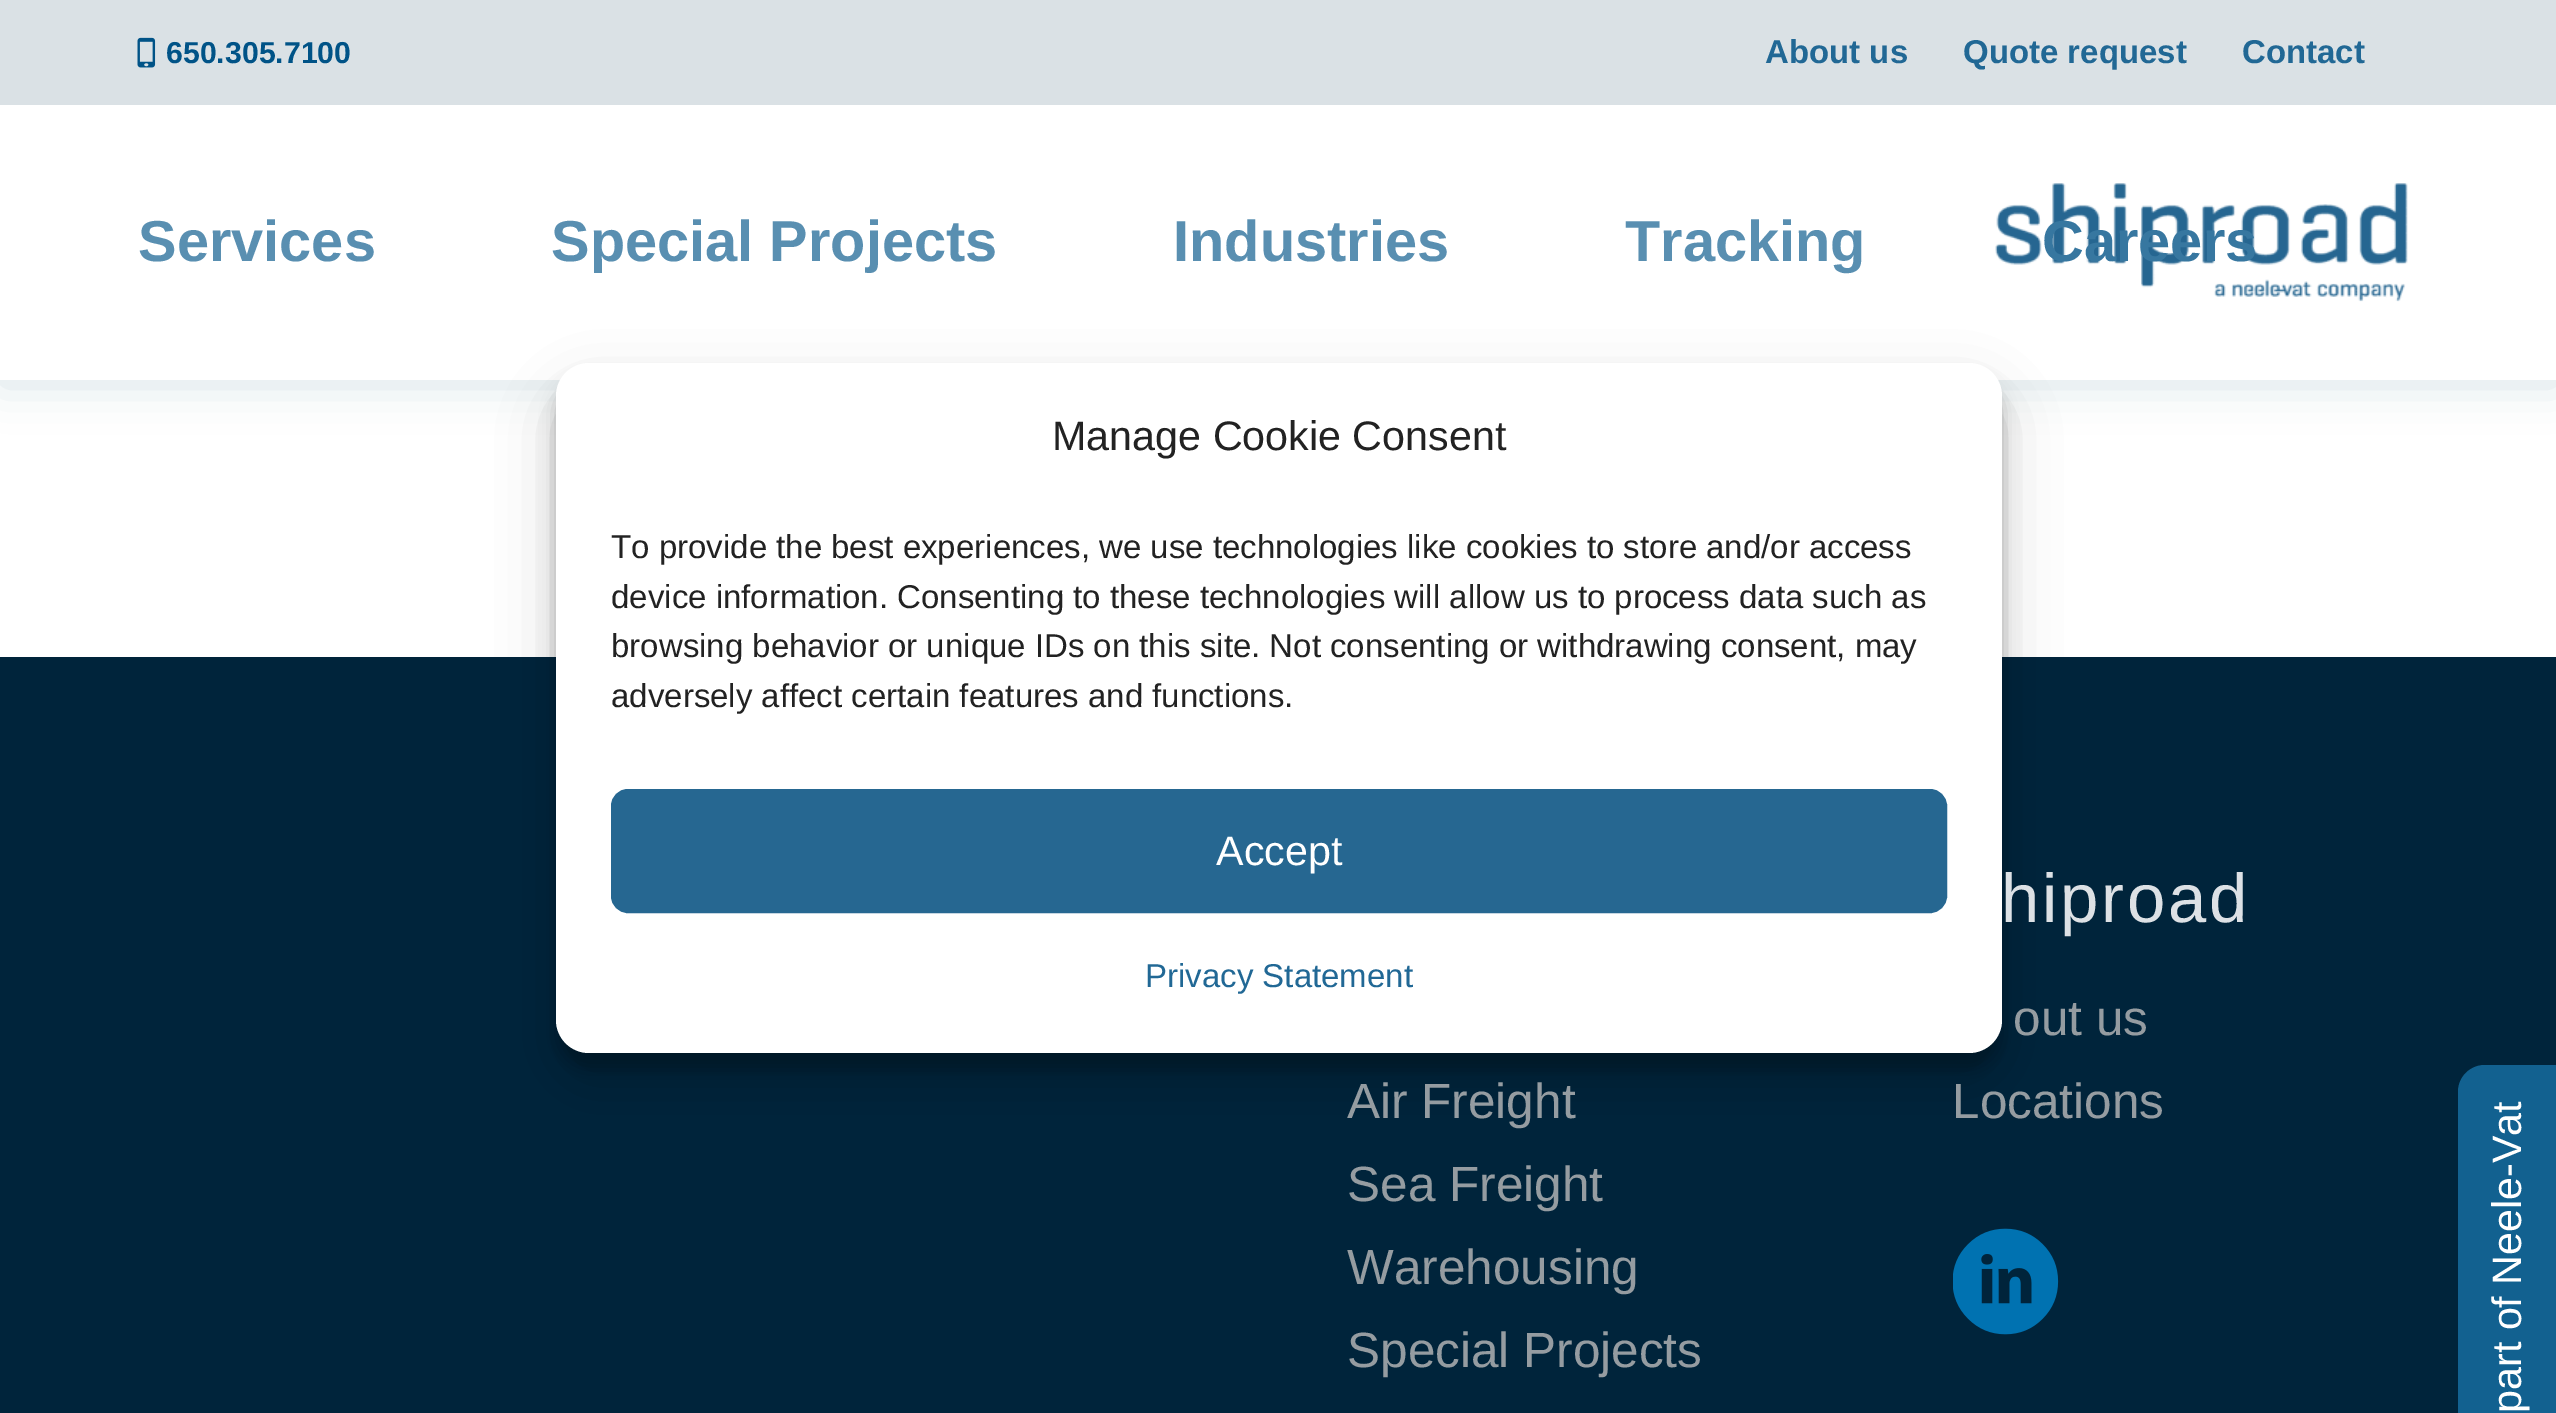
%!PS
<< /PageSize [2556 1413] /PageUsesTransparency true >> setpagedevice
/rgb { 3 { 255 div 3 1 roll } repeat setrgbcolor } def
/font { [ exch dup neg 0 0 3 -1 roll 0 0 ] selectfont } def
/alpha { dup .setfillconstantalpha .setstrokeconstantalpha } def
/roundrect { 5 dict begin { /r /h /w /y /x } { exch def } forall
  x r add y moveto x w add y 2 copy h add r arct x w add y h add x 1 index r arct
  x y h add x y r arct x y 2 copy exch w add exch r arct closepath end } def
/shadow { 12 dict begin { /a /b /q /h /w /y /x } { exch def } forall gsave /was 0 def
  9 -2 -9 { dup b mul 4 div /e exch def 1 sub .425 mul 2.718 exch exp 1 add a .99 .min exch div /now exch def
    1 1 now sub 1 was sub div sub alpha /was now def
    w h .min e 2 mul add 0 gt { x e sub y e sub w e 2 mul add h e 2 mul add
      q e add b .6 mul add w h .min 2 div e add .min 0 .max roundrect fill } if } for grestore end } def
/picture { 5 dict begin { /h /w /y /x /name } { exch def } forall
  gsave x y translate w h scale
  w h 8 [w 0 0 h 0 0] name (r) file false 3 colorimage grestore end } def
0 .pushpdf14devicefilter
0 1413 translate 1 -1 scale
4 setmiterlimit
255 255 255 rgb
0 0 2556 1413 rectfill
2 64 103 rgb
0 6 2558 379 0 22 0.15 shadow
218 225 229 rgb
0 0 2556 105 rectfill
(img/1.rgb) 137 37 19 31 picture
255 255 255 rgb
0 105 2556 275 rectfill
(img/2.rgb) 1995 183 413 119 picture
0 36 59 rgb
0 657 2556 756 rectfill
(img/3.rgb) 1953 1228 106 107 picture
0 0 0 rgb
556 380 1446 690 33 8 0.23 shadow
556 391 1446 690 33 27.5 0.19 shadow
255 255 255 rgb
556 363 1446 690 33 roundrect fill
38 103 145 rgb
612.5 790.5 1333 121 15.5 roundrect gsave fill grestore
3 setlinewidth
stroke
18 97 144 rgb
2458 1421 moveto 2458 1092 lineto 2458 1077 2470 1065 2485 1065 curveto 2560 1065 lineto 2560 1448 lineto 2485 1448 lineto 2470 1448 2458 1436 2458 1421 curveto closepath fill
/LiberationSans-Bold 30.25 font
0 83 135 rgb
166 63 moveto (650.305.7100) show
/LiberationSans-Bold 33 font
33 104 149 rgb
[
  [(About us) 1765 63]
  [(Quote request) 1963 63]
  [(Contact) 2242 63]
] { aload pop moveto show } forall
/LiberationSans-Bold 57.75 font
89 143 177 rgb
[
  [(Services) 138 261]
  [(Special Projects) 551 261]
  [(Industries) 1173 261]
  [(Tracking) 1625 261]
] { aload pop moveto show } forall
55 119 160 rgb
2042 261 moveto (Careers) show
/LiberationSans-Regular 69 font
221 225 229 rgb
2001 922 moveto 2.75 0 (hiproad) ashow
/LiberationSans-Regular 49.5 font
149 156 161 rgb
[
  [(out us) 2013 1035]
  [(Locations) 1952 1118]
  [(Air Freight) 1347 1118]
  [(Sea Freight) 1347 1201]
  [(Warehousing) 1347 1284]
  [(Special Projects) 1347 1367]
] { aload pop moveto show } forall
/LiberationSans-Regular 41.25 font
34 34 34 rgb
1052 450 moveto (Manage Cookie Consent) show
/LiberationSans-Regular 33 font
[
  [(To provide the best experiences, we use technologies like cookies to store and/or access) 611 558]
  [(device information. Consenting to these technologies will allow us to process data such as) 611 608]
  [(browsing behavior or unique IDs on this site. Not consenting or withdrawing consent, may) 611 657]
  [(adversely affect certain features and functions.) 611 707]
] { aload pop moveto show } forall
/LiberationSans-Regular 41.25 font
255 255 255 rgb
1216 865 moveto (Accept) show
/LiberationSans-Regular 33 font
33 104 149 rgb
1145 987 moveto (Privacy Statement) show
/LiberationSans-Regular 41.25 font
255 255 255 rgb
gsave 2521 1413 translate -90 rotate 0 0 moveto (part of Neele-Vat) show grestore
.poppdf14devicefilter showpage
